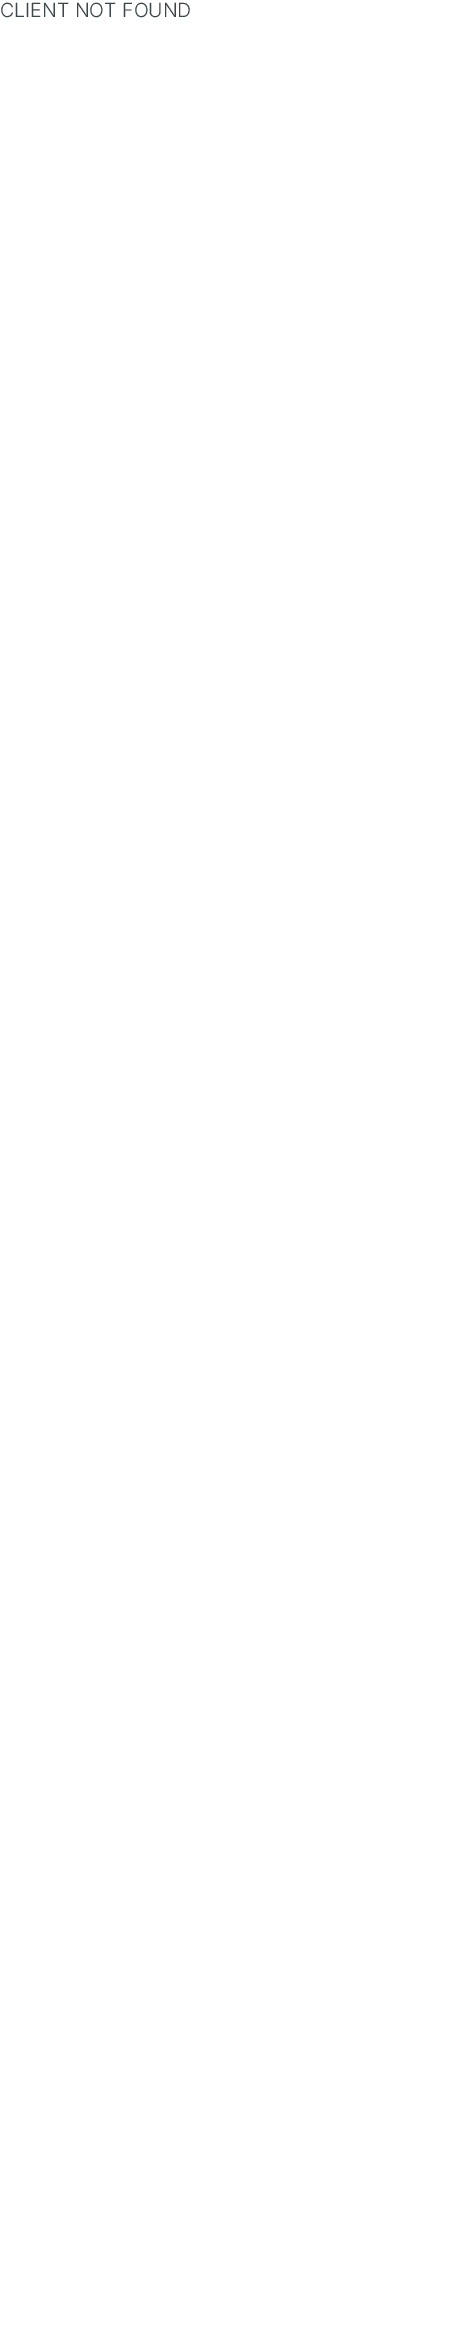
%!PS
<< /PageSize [460 2351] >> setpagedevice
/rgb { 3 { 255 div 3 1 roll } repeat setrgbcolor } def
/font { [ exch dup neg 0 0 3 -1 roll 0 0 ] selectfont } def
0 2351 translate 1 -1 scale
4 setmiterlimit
255 255 255 rgb
0 0 460 2351 rectfill
/Inter-Light 19.5 font
59 69 74 rgb
0 17 moveto (CLIENT NOT FOUND) show
showpage
